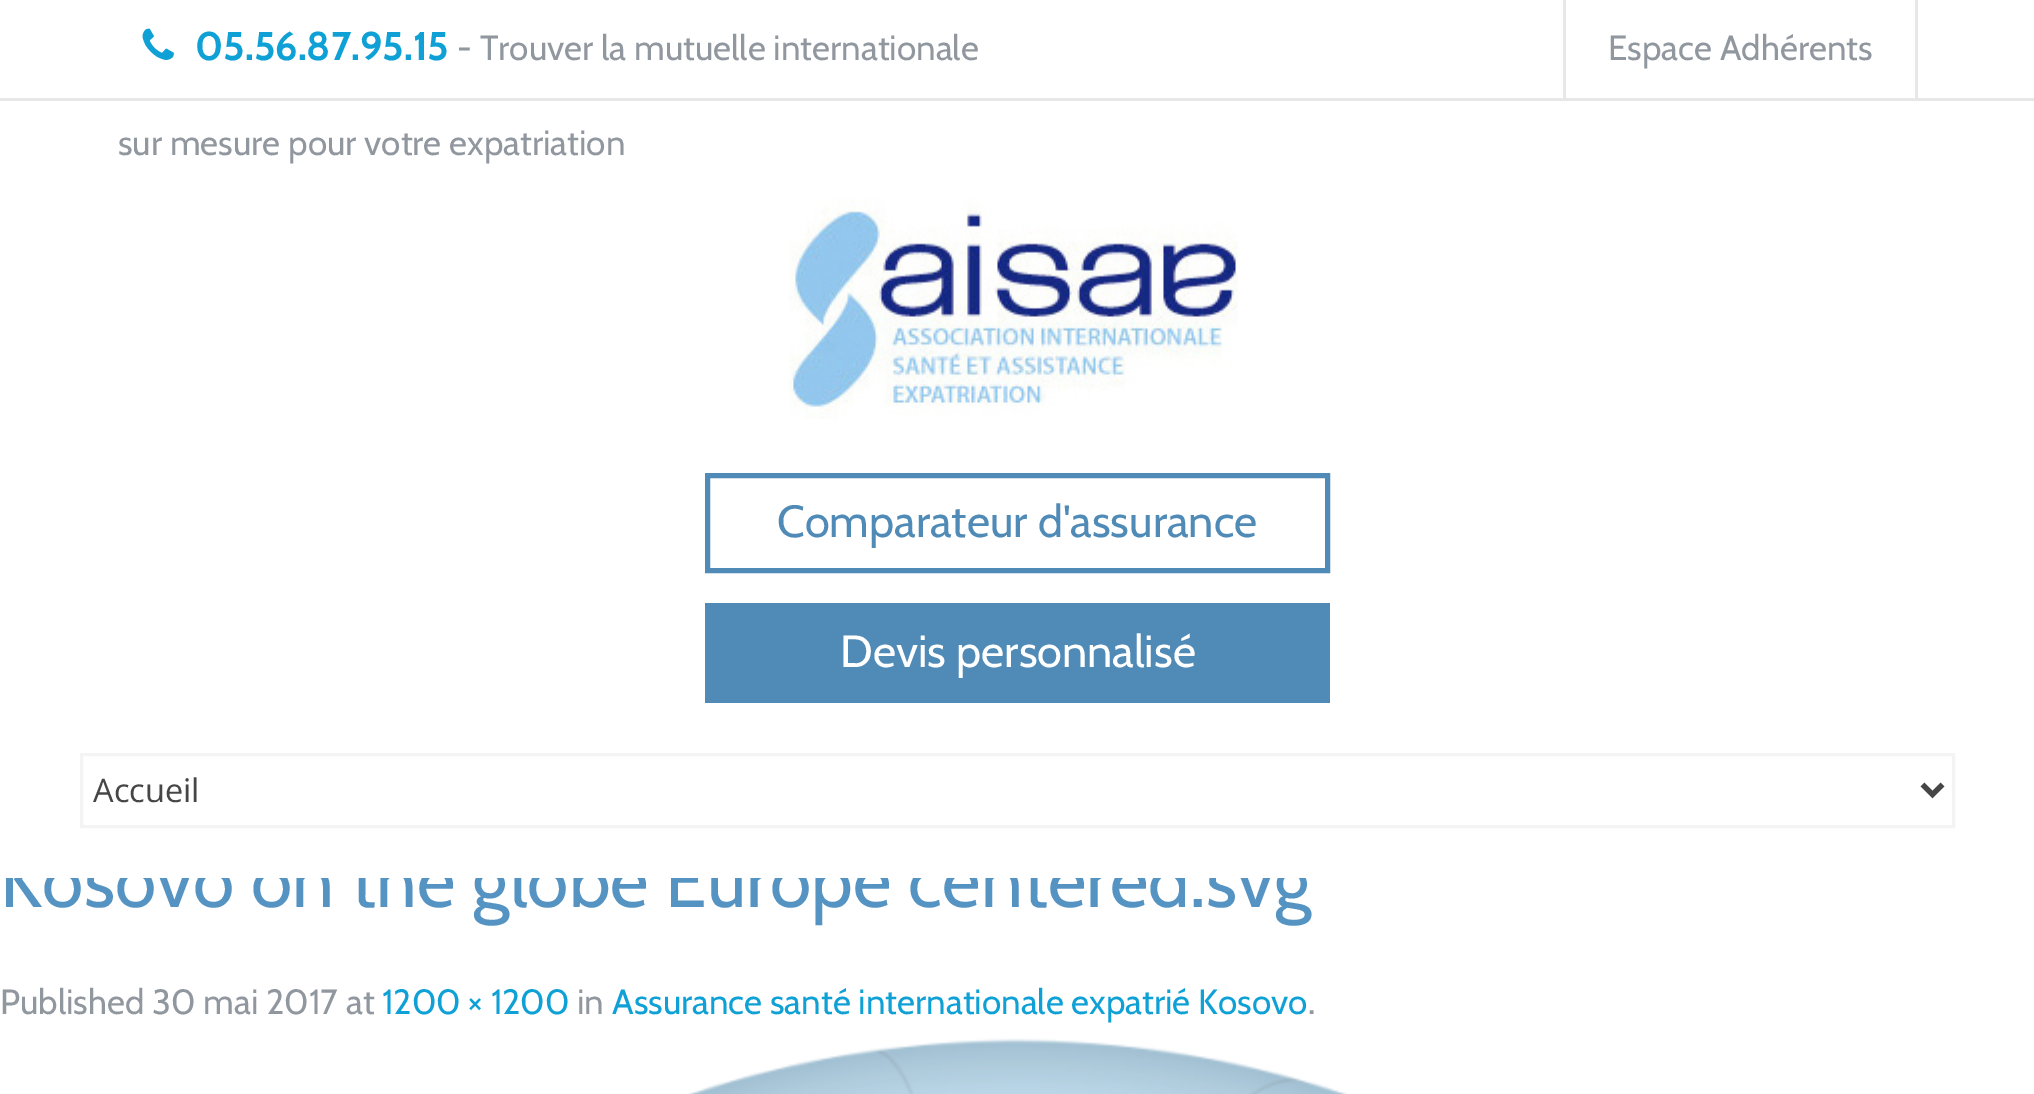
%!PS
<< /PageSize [2034 1094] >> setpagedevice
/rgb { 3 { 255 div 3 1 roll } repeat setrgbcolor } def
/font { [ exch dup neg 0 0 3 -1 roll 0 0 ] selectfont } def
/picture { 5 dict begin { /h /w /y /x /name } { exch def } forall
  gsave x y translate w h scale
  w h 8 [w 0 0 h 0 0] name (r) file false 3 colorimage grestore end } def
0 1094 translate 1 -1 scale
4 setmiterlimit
255 255 255 rgb
0 0 2034 1094 rectfill
231 231 231 rgb
0 98 2034 3 rectfill
(img/1.rgb) 142 28 32 32 picture
1915 0 3 100 rectfill
1563 0 3 100 rectfill
(img/2.rgb) 789 198 449 221 picture
80 139 183 rgb
5 setlinewidth
707.5 475.5 620 95 rectstroke
705 603 625 100 rectfill
244 244 244 rgb
3 setlinewidth
81.5 754.5 1872 72 rectstroke
70 70 70 rgb
5 setlinewidth
1922.5 784.5 moveto 1932.5 794.5 lineto 1942.5 784.5 lineto stroke
(img/3.rgb) 688 1038 660 56 picture
/Cabin-Bold 40 font
15 161 213 rgb
195 60 moveto (05.56.87.95.15) show
/Cabin-Regular 35 font
145 151 159 rgb
[
  [(- Trouver la mutuelle internationale) 457 60]
  [(sur mesure pour votre expatriation) 118 155]
  [(Espace Adhérents) 1608 60]
] { aload pop moveto show } forall
/Cabin-Regular 45 font
80 139 183 rgb
777 537 moveto (Comparateur d'assurance) show
255 255 255 rgb
840 667 moveto (Devis personnalisé) show
/OpenSans-Regular 32.5 font
70 70 70 rgb
93 802 moveto (Accueil) show
/Cabin-Regular 75 font
85 147 194 rgb
0 907 moveto (Kosovo on the globe Europe centered.svg) show
255 255 255 rgb
6 850 1305 28 rectfill
/Cabin-Regular 35 font
145 151 159 rgb
0 1014 moveto (Published 30 mai 2017 at) show
15 161 213 rgb
382 1014 moveto (1200 × 1200) show
145 151 159 rgb
577 1014 moveto (in) show
15 161 213 rgb
612 1014 moveto (Assurance santé internationale expatrié Kosovo) show
145 151 159 rgb
1308 1014 moveto (.) show
showpage
